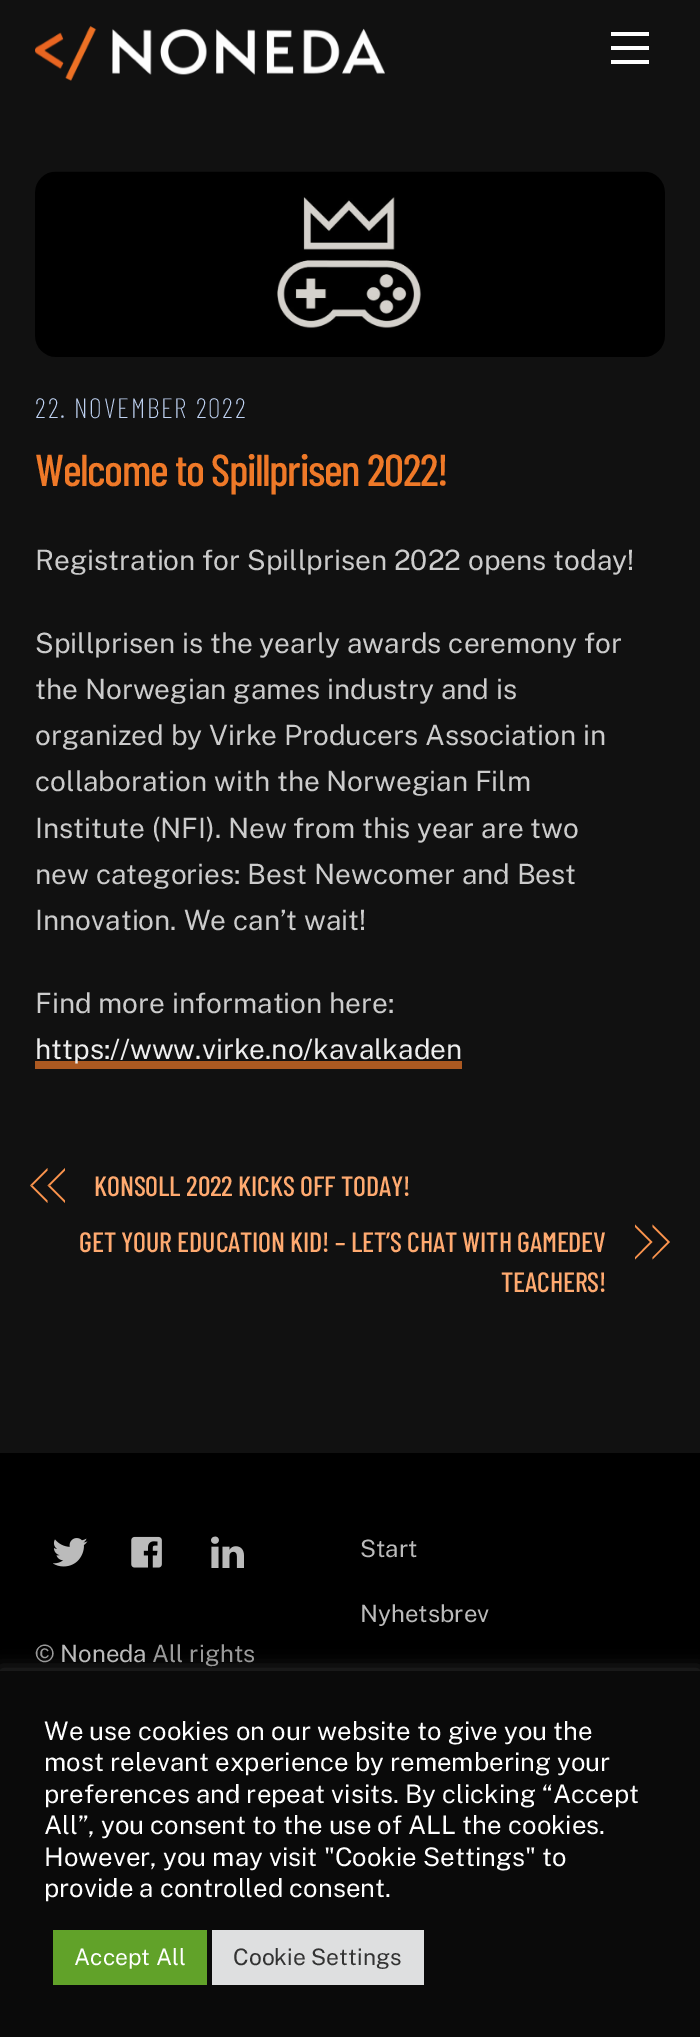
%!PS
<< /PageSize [700 2037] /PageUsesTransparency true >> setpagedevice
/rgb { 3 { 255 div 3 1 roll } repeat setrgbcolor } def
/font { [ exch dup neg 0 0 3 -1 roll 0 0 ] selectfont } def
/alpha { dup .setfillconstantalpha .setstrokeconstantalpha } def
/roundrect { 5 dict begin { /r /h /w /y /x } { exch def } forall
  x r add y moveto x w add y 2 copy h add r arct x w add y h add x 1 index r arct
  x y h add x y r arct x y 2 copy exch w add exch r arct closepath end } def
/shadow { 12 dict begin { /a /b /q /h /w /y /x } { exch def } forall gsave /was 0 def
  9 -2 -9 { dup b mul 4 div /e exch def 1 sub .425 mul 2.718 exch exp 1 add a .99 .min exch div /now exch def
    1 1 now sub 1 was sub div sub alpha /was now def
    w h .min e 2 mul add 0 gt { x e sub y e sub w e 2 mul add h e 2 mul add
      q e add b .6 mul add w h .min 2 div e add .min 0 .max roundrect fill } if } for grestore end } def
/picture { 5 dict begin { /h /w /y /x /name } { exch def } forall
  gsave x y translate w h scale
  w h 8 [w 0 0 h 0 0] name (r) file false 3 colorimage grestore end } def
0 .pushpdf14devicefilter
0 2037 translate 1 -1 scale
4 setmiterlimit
17 17 17 rgb
0 0 700 2037 rectfill
(img/1.rgb) 35 26 350 55 picture
[
  [611 60 38 4 255 255 255]
  [611 32 38 4 255 255 255]
  [611 46 38 4 255 255 255]
] { aload pop rgb rectfill } forall
(img/2.rgb) 35 171 630 186 picture
172 89 33 rgb
35 1061 427 8 rectfill
252 148 77 rgb
30 1185.5 moveto 47.5 1168 lineto 47.5 1170.5 lineto 32.5 1185.5 lineto closepath fill
47.5 1203 moveto 30 1185.5 lineto 32.5 1185.5 lineto 47.5 1200.5 lineto closepath fill
47.5 1185.5 moveto 65 1168 lineto 65 1170.5 lineto 50 1185.5 lineto closepath fill
65 1203 moveto 47.5 1185.5 lineto 50 1185.5 lineto 65 1200.5 lineto closepath fill
652.5 1224.5 moveto 670 1242 lineto 667.5 1242 lineto 652.5 1227 lineto closepath 670 1242 moveto 652.5 1259.5 lineto 652.5 1257.5 lineto 667.5 1242 lineto closepath fill
635 1224.5 moveto 652.5 1242 lineto 650 1242 lineto 635 1227 lineto closepath 652.5 1242 moveto 635 1259.5 lineto 635 1257.5 lineto 650 1242 lineto closepath fill
0 0 0 rgb
0 1453 700 218 rectfill
(img/3.rgb) 53 1538 35 29 picture
(img/4.rgb) 131 1536 31 32 picture
(img/5.rgb) 211 1536 33 32 picture
172 171 171 rgb
0 1670 700 365 0 9 0.3 shadow
[
  [0 1671 700 366 10 10 10]
  [53 1930 154 55 97 162 41]
  [212 1930 212 55 222 223 224]
] { aload pop rgb rectfill } forall
/BarlowCondensed-ExtraLight 28 font
191 210 242 rgb
35 418 moveto 1.75 0 (22. NOVEMBER 2022) ashow
/BarlowCondensed-Medium 44.75 font
239 121 40 rgb
35 486 moveto -1.35 0 (Welcome to Spillprisen 2022!) ashow
/PublicSans-Regular 28 font
204 204 204 rgb
[
  [(Registration for Spillprisen 2022 opens today!) 35 570]
  [(Spillprisen is the yearly awards ceremony for) 35 653]
  [(the Norwegian games industry and is) 35 699]
  [(organized by Virke Producers Association in) 35 745]
  [(collaboration with the Norwegian Film) 35 791]
  [(Institute \(NFI\). New from this year are two) 35 838]
  [(new categories: Best Newcomer and Best) 35 884]
  [(Innovation. We can’t wait!) 35 930]
  [(Find more information here:) 35 1013]
] { aload pop moveto show } forall
238 238 238 rgb
35 1059 moveto (https://www.virke.no/kavalkaden) show
/BarlowCondensed-Medium 28 font
255 170 112 rgb
94 1196 moveto -0.15 0 (KONSOLL 2022 KICKS OFF TODAY!) ashow
79 1252 moveto -0.15 0 (GET YOUR EDUCATION KID! – LET’S CHAT WITH GAMEDEV) ashow
501 1292 moveto -0.15 0 (TEACHERS!) ashow
/PublicSans-Regular 24 font
187 187 187 rgb
360 1557 moveto (Start) show
360 1622 moveto (Nyhetsbrev) show
153 153 153 rgb
35 1662 moveto (©) show
187 187 187 rgb
60 1662 moveto (Noneda) show
153 153 153 rgb
152 1662 moveto (All rights) show
/PublicSans-Regular 25.7 font
255 255 255 rgb
[
  [(We use cookies on our website to give you the) 44 1740]
  [(most relevant experience by remembering your) 44 1771]
  [(preferences and repeat visits. By clicking “Accept) 44 1803]
  [(All”, you consent to the use of ALL the cookies.) 44 1834]
  [(However, you may visit "Cookie Settings" to) 44 1866]
  [(provide a controlled consent.) 44 1897]
] { aload pop moveto show } forall
/PublicSans-Regular 22.75 font
74 1965 moveto (Accept All) show
51 51 51 rgb
233 1965 moveto (Cookie Settings) show
.poppdf14devicefilter showpage
